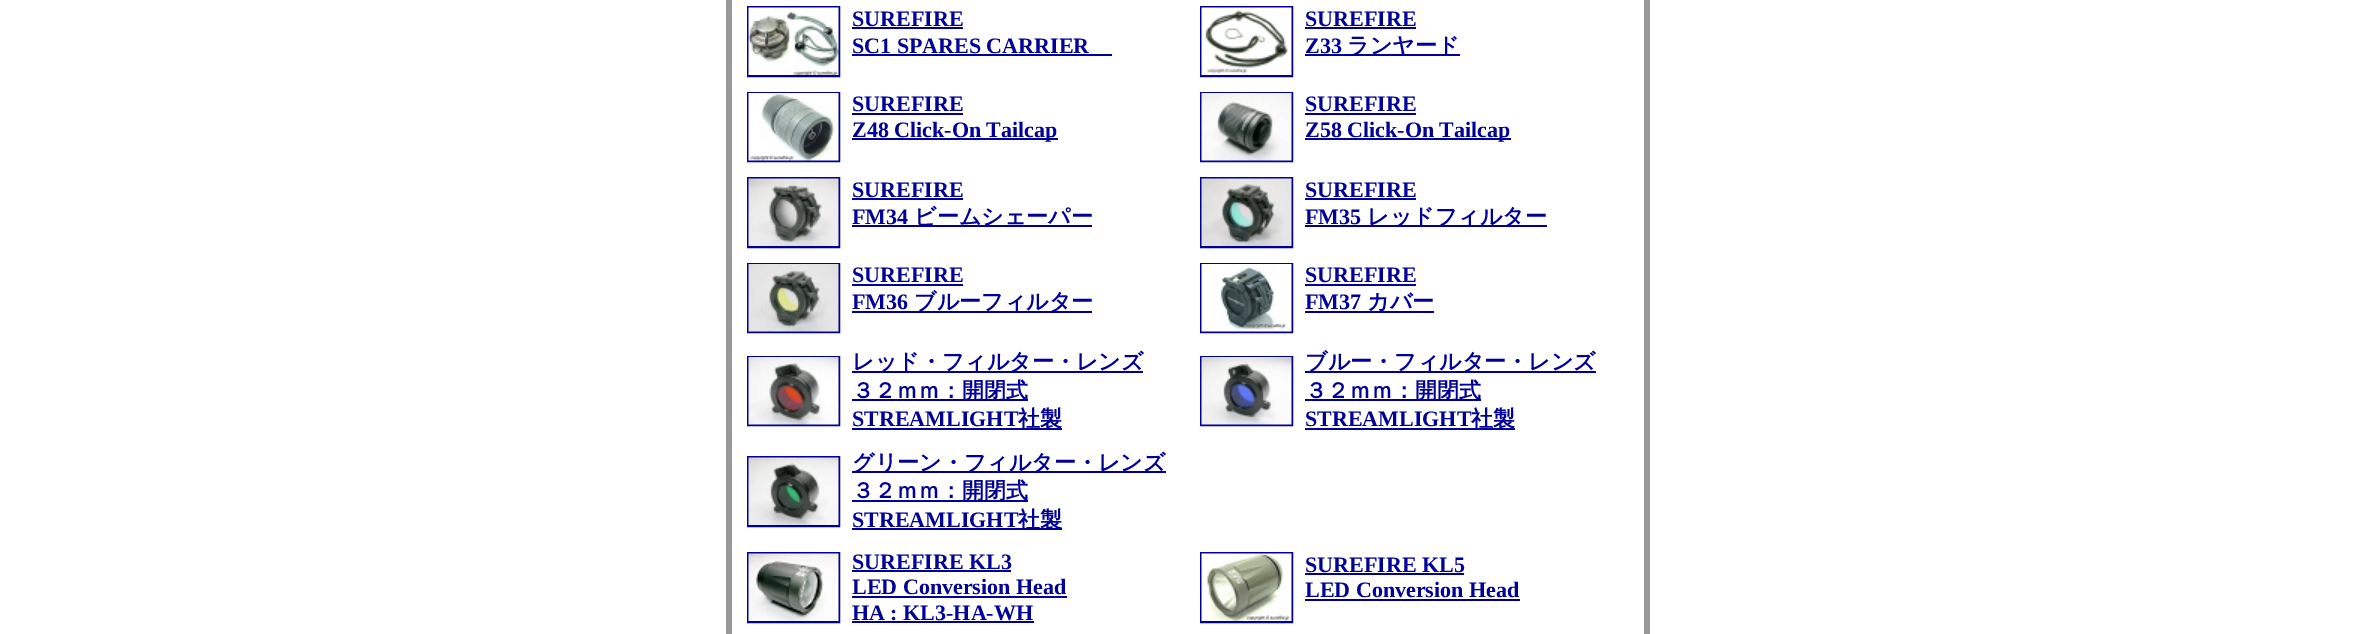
%!PS
<< /PageSize [2376 634] >> setpagedevice
/rgb { 3 { 255 div 3 1 roll } repeat setrgbcolor } def
/font { [ exch dup neg 0 0 3 -1 roll 0 0 ] selectfont } def
/picture { 5 dict begin { /h /w /y /x /name } { exch def } forall
  gsave x y translate w h scale
  w h 8 [w 0 0 h 0 0] name (r) file false 3 colorimage grestore end } def
0 634 translate 1 -1 scale
4 setmiterlimit
255 255 255 rgb
0 0 2376 634 rectfill
153 153 153 rgb
726 0 924 634 rectfill
255 255 255 rgb
732 0 912 634 rectfill
0 0 153 rgb
2 setlinewidth
748 7 91 69 rectstroke
(img/1.rgb) 748 7 91 68 picture
852 27 111 2 rectfill
852 54 260 2 rectfill
1201 7 91 69 rectstroke
(img/2.rgb) 1201 7 91 68 picture
1305 27 111 2 rectfill
1305 54 155 2 rectfill
748 93 91 68 rectstroke
(img/3.rgb) 748 93 91 68 picture
852 113 111 2 rectfill
852 138 206 2 rectfill
1201 93 91 68 rectstroke
(img/4.rgb) 1201 93 91 68 picture
1305 113 111 2 rectfill
1305 138 206 2 rectfill
748 178 91 69 rectstroke
(img/5.rgb) 748 178 91 68 picture
852 198 111 2 rectfill
852 225 240 2 rectfill
1201 178 91 69 rectstroke
(img/6.rgb) 1201 178 91 68 picture
1305 198 111 2 rectfill
1305 225 242 2 rectfill
748 264 91 68 rectstroke
(img/7.rgb) 748 264 91 68 picture
852 284 111 2 rectfill
852 311 240 2 rectfill
1201 264 91 68 rectstroke
(img/8.rgb) 1201 264 91 68 picture
1305 284 111 2 rectfill
1305 311 129 2 rectfill
748 357 91 68 rectstroke
(img/9.rgb) 748 357 91 68 picture
[
  [852 371 291 2 0 0 153]
  [852 399 176 2 0 0 153]
  [852 428 210 2 0 0 153]
] { aload pop rgb rectfill } forall
1201 357 91 68 rectstroke
(img/10.rgb) 1201 357 91 68 picture
[
  [1305 371 291 2 0 0 153]
  [1305 399 176 2 0 0 153]
  [1305 428 210 2 0 0 153]
] { aload pop rgb rectfill } forall
748 457 91 69 rectstroke
(img/11.rgb) 748 457 91 68 picture
[
  [852 471 314 2 0 0 153]
  [852 500 176 2 0 0 153]
  [852 528 210 2 0 0 153]
] { aload pop rgb rectfill } forall
748 553 91 69 rectstroke
(img/12.rgb) 748 553 91 68 picture
[
  [852 570 159 2 0 0 153]
  [852 596 215 2 0 0 153]
  [852 621 182 2 0 0 153]
] { aload pop rgb rectfill } forall
1201 553 91 69 rectstroke
(img/13.rgb) 1201 553 91 68 picture
1305 573 159 2 rectfill
1305 599 215 2 rectfill
/LiberationSerif-Bold 22 font
[
  [(SUREFIRE) 852 26]
  [(SC1 SPARES CARRIER) 852 53]
  [(SUREFIRE) 1305 26]
  [(Z33) 1305 53]
] { aload pop moveto show } forall
/WenQuanYiZenHei-Bold 22 font
1347 53 moveto (ランヤード) show
/LiberationSerif-Bold 22 font
[
  [(SUREFIRE) 852 111]
  [(Z48 Click-On Tailcap) 852 137]
  [(SUREFIRE) 1305 111]
  [(Z58 Click-On Tailcap) 1305 137]
  [(SUREFIRE) 852 197]
  [(FM34) 852 224]
] { aload pop moveto show } forall
/WenQuanYiZenHei-Bold 22 font
914 224 moveto (ビームシェーパー) show
/LiberationSerif-Bold 22 font
1305 197 moveto (SUREFIRE) show
1305 224 moveto (FM35) show
/WenQuanYiZenHei-Bold 22 font
1367 224 moveto (レッドフィルター) show
/LiberationSerif-Bold 22 font
852 282 moveto (SUREFIRE) show
852 309 moveto (FM36) show
/WenQuanYiZenHei-Bold 22 font
914 309 moveto (ブルーフィルター) show
/LiberationSerif-Bold 22 font
1305 282 moveto (SUREFIRE) show
1305 309 moveto (FM37) show
/WenQuanYiZenHei-Bold 22 font
[
  [(カバー) 1367 309]
  [(レッド・フィルター・レンズ) 852 369]
  [(３２ｍｍ：開閉式) 852 398]
] { aload pop moveto show } forall
/LiberationSerif-Bold 22 font
852 426 moveto (STREAMLIGHT) show
/WenQuanYiZenHei-Bold 22 font
[
  [(社製) 1018 426]
  [(ブルー・フィルター・レンズ) 1305 369]
  [(３２ｍｍ：開閉式) 1305 398]
] { aload pop moveto show } forall
/LiberationSerif-Bold 22 font
1305 426 moveto (STREAMLIGHT) show
/WenQuanYiZenHei-Bold 22 font
[
  [(社製) 1471 426]
  [(グリーン・フィルター・レンズ) 852 470]
  [(３２ｍｍ：開閉式) 852 498]
] { aload pop moveto show } forall
/LiberationSerif-Bold 22 font
852 527 moveto (STREAMLIGHT) show
/WenQuanYiZenHei-Bold 22 font
1018 527 moveto (社製) show
/LiberationSerif-Bold 22 font
[
  [(SUREFIRE KL3) 852 569]
  [(LED Conversion Head) 852 594]
  [(HA : KL3-HA-WH) 852 620]
  [(SUREFIRE KL5) 1305 572]
  [(LED Conversion Head) 1305 597]
] { aload pop moveto show } forall
showpage
